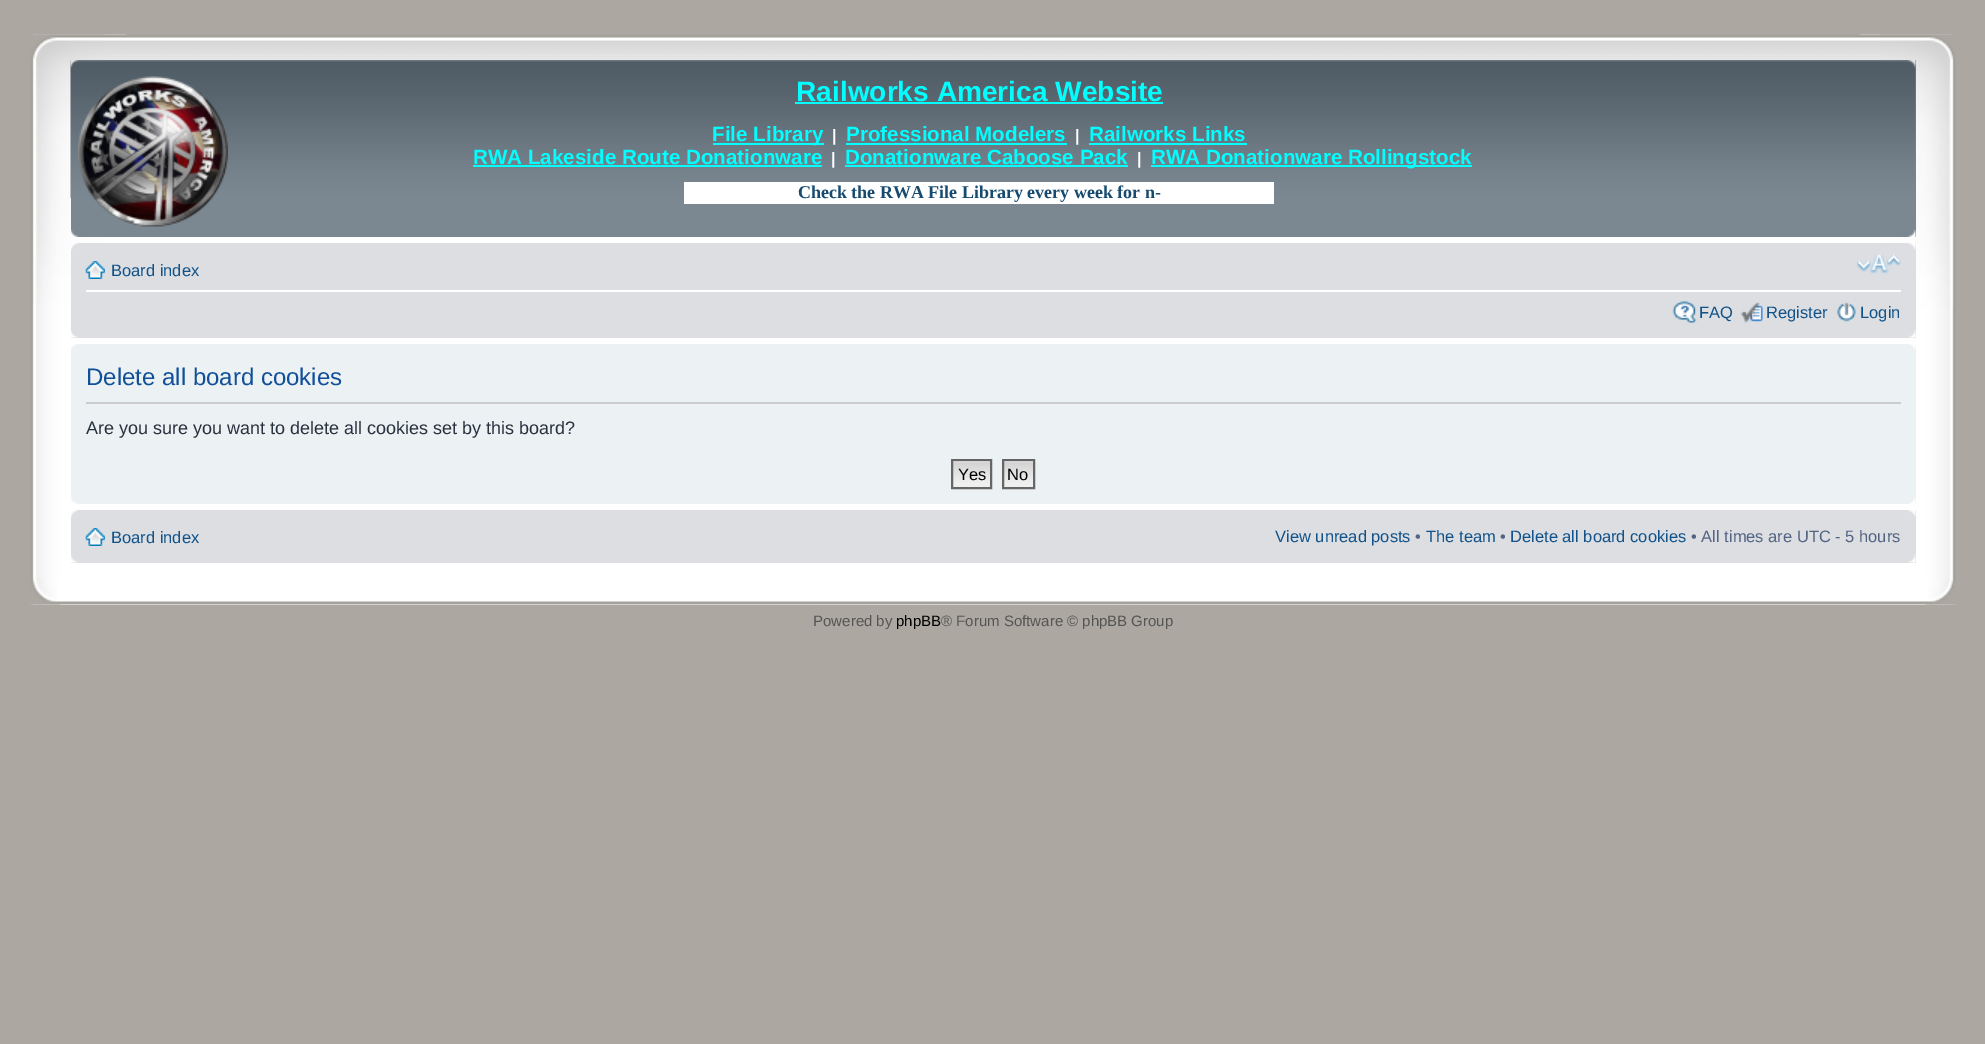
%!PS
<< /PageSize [1985 1044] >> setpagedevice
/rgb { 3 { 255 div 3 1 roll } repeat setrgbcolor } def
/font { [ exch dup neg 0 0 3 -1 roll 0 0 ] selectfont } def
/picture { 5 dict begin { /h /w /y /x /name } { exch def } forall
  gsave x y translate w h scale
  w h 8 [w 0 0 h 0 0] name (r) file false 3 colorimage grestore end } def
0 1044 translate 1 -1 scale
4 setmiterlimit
172 168 161 rgb
0 0 1985 1044 rectfill
255 255 255 rgb
30 237 1926 368 rectfill
(img/1.rgb) 30 34 96 571 picture
(img/2.rgb) 1860 34 96 571 picture
(img/3.rgb) 30 34 1926 26 picture
(img/4.rgb) 30 34 75 271 picture
(img/5.rgb) 1881 34 75 275 picture
124 136 145 rgb
71 60 1845 177 rectfill
(img/6.rgb) 70 60 1846 138 picture
(img/7.rgb) 70 60 9 8 picture
(img/8.rgb) 1907 60 9 8 picture
(img/9.rgb) 78 76 150 151 picture
[
  [795 102 368 2 0 255 255]
  [713 143 111 2 0 255 255]
  [846 143 221 2 0 255 255]
  [1089 143 158 2 0 255 255]
  [473 165 349 2 0 255 255]
  [845 165 283 2 0 255 255]
  [1151 165 321 2 0 255 255]
  [684 182 590 22 255 255 255]
] { aload pop rgb rectfill } forall
(img/10.rgb) 71 229 8 8 picture
(img/11.rgb) 1908 229 8 8 picture
220 222 226 rgb
71 243 1845 95 rectfill
(img/12.rgb) 71 243 7 7 picture
(img/13.rgb) 1908 243 8 7 picture
255 255 255 rgb
86 290 1815 2 rectfill
(img/14.rgb) 85 261 20 18 picture
(img/15.rgb) 1857 254 44 20 picture
(img/16.rgb) 1672 301 25 22 picture
(img/17.rgb) 1741 302 22 21 picture
(img/18.rgb) 1837 302 19 20 picture
(img/19.rgb) 71 330 7 8 picture
(img/20.rgb) 1908 330 8 8 picture
236 241 243 rgb
71 344 1845 160 rectfill
(img/21.rgb) 71 344 6 6 picture
(img/22.rgb) 1909 344 7 6 picture
204 204 204 rgb
86 402 1815 2 rectfill
250 250 250 rgb
953 461 37 1 rectfill
(img/23.rgb) 953 462 37 25 picture
102 102 102 rgb
2 setlinewidth
952 460 39 28 rectstroke
250 250 250 rgb
1004 461 29 1 rectfill
(img/24.rgb) 1004 462 29 25 picture
102 102 102 rgb
1003 460 31 28 rectstroke
(img/25.rgb) 71 497 7 7 picture
(img/26.rgb) 1909 497 7 7 picture
220 222 226 rgb
71 510 1845 53 rectfill
(img/12.rgb) 71 510 7 7 picture
(img/13.rgb) 1908 510 8 7 picture
(img/14.rgb) 85 528 20 18 picture
(img/19.rgb) 71 555 7 8 picture
(img/20.rgb) 1908 555 8 8 picture
(img/27.rgb) 30 591 1926 14 picture
(img/28.rgb) 30 578 30 27 picture
(img/29.rgb) 1926 580 30 25 picture
/LiberationSans-Bold 28.1 font
0 255 255 rgb
796 101 moveto (Railworks America Website) show
/LiberationSans-Bold 20.6 font
712 141 moveto (File Library) show
/LiberationSans-Bold 16.5 font
255 255 255 rgb
832 141 moveto (|) show
/LiberationSans-Bold 20.6 font
0 255 255 rgb
846 141 moveto (Professional Modelers) show
/LiberationSans-Bold 16.5 font
255 255 255 rgb
1075 141 moveto (|) show
/LiberationSans-Bold 20.6 font
0 255 255 rgb
1089 141 moveto (Railworks Links) show
473 164 moveto (RWA Lakeside Route Donationware) show
/LiberationSans-Bold 16.5 font
255 255 255 rgb
831 164 moveto (|) show
/LiberationSans-Bold 20.6 font
0 255 255 rgb
845 164 moveto (Donationware Caboose Pack) show
/LiberationSans-Bold 16.5 font
255 255 255 rgb
1137 164 moveto (|) show
/LiberationSans-Bold 20.6 font
0 255 255 rgb
1151 164 moveto (RWA Donationware Rollingstock) show
/LiberationSerif-Bold 18 font
22 74 111 rgb
798 198 moveto (Check the RWA File Library every week for n-) show
/LiberationSans-Regular 16.5 font
16 82 137 rgb
[
  [(Board index) 111 276]
  [(FAQ) 1699 318]
  [(Register) 1766 318]
  [(Login) 1860 318]
] { aload pop moveto show } forall
/LiberationSans-Regular 24 font
17 80 152 rgb
86 385 moveto (Delete all board cookies) show
/LiberationSans-Regular 18 font
40 49 63 rgb
86 434 moveto (Are you sure you want to delete all cookies set by this board?) show
/LiberationSans-Regular 16.5 font
0 0 0 rgb
958 480 moveto (Yes) show
1007 480 moveto (No) show
16 82 137 rgb
111 543 moveto (Board index) show
1275 542 moveto (View unread posts) show
83 100 130 rgb
1415 542 moveto (•) show
16 82 137 rgb
1426 542 moveto (The team) show
83 100 130 rgb
1500 542 moveto (•) show
16 82 137 rgb
1510 542 moveto (Delete all board cookies) show
83 100 130 rgb
1691 542 moveto (• All times are UTC - 5 hours) show
/LiberationSans-Regular 15 font
85 85 85 rgb
813 626 moveto (Powered by) show
0 0 0 rgb
896 626 moveto (phpBB) show
85 85 85 rgb
941 626 moveto (® Forum Software © phpBB Group) show
showpage
